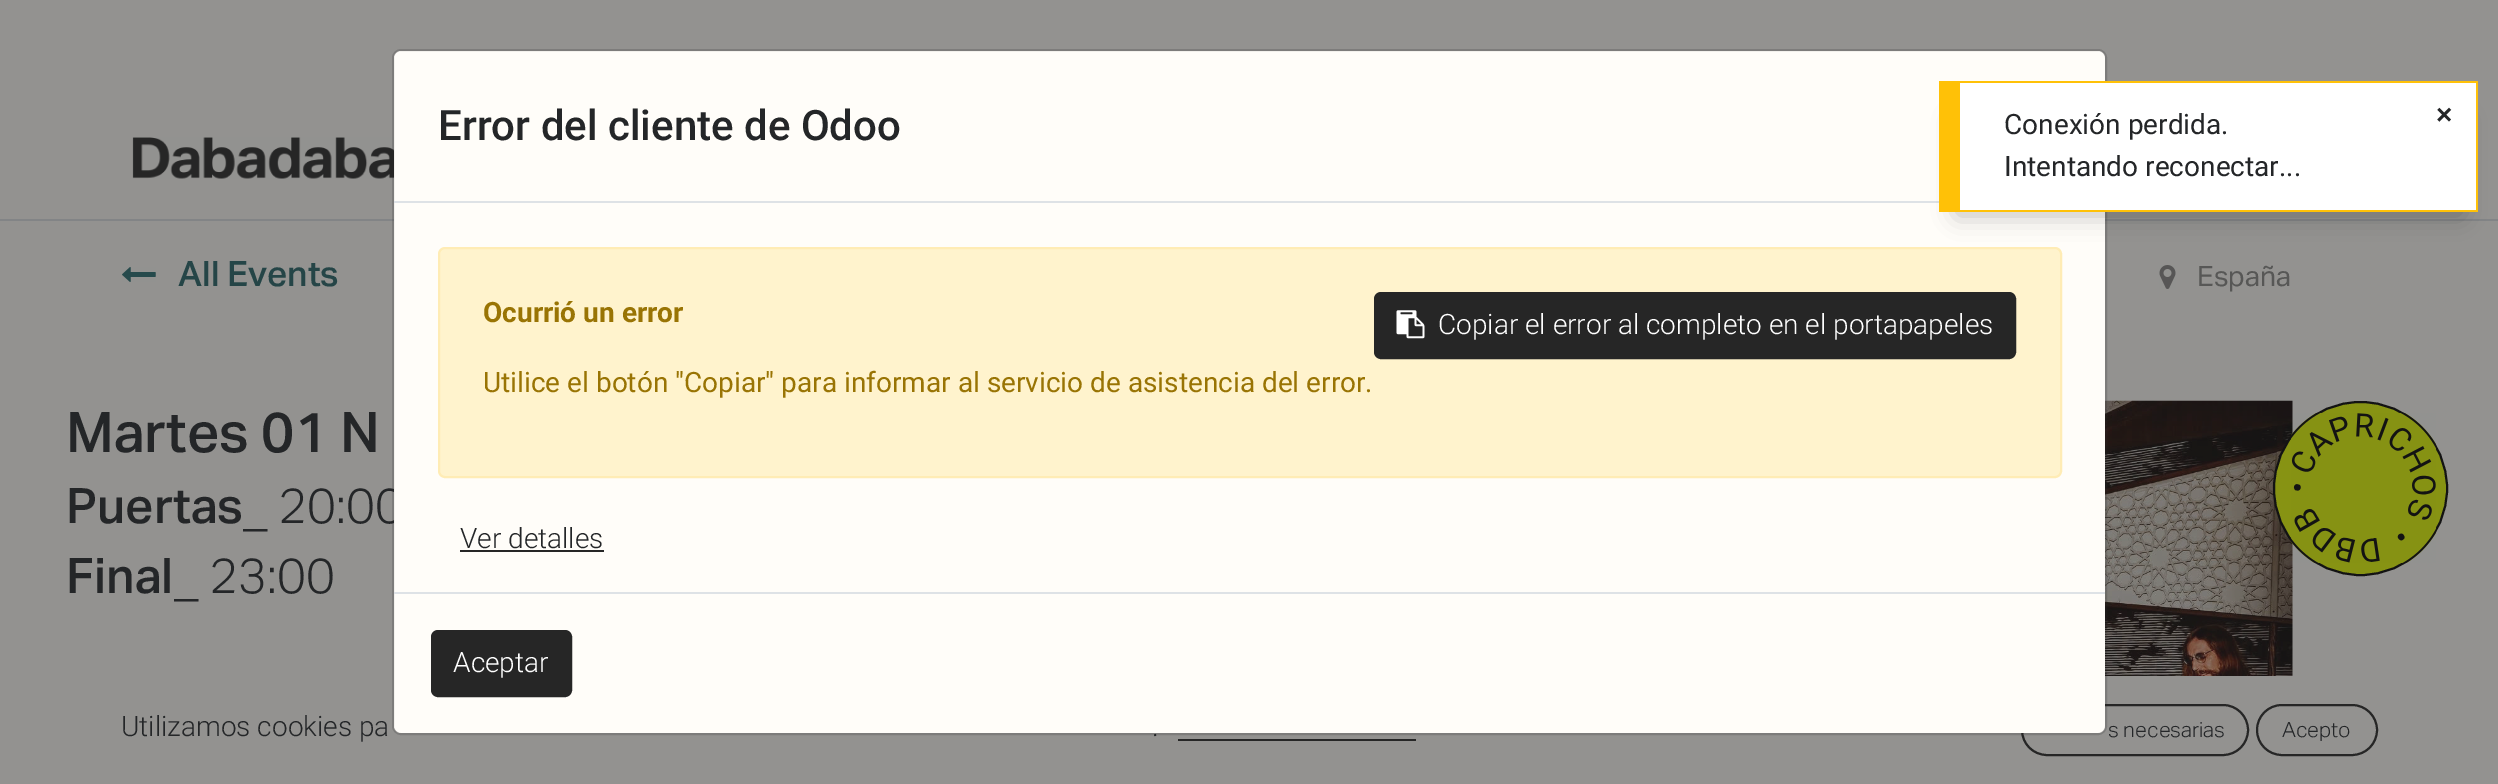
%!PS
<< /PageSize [2498 784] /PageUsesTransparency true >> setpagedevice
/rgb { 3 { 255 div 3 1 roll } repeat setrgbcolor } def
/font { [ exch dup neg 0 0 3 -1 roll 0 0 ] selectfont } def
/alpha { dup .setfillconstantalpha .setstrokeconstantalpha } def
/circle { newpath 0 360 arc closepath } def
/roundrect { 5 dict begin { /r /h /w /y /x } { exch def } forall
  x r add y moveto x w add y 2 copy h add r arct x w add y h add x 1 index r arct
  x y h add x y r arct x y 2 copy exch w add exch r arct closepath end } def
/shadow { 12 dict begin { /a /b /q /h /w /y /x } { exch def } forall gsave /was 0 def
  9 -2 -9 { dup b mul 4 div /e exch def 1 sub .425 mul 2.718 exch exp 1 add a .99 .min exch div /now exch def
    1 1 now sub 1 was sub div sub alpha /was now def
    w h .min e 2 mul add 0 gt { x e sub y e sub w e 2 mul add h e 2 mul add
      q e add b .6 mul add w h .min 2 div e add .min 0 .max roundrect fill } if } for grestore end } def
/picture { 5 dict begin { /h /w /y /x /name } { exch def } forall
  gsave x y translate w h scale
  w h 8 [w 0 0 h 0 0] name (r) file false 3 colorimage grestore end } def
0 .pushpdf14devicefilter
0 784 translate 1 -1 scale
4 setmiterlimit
147 146 144 rgb
0 0 2498 784 rectfill
(img/2.rgb) 132 137 262 42 picture
130 132 134 rgb
0 219 2498 2 rectfill
(img/3.rgb) 122 267 34 15 picture
(img/4.rgb) 2159 265 17 24 picture
(img/6.rgb) 2105 400 188 276 picture
135 147 19 rgb
2360.5 488.5 86.5 circle gsave fill grestore
19 19 19 rgb
2 setlinewidth
stroke
(img/5.rgb) 2291 413 145 150 picture
38 38 38 rgb
1178 739 238 2 rectfill
2022 705 226 50 25 roundrect stroke
2257 705 120 50 25 roundrect stroke
/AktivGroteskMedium-Medium 35 font
37 69 71 rgb
178 286 moveto (All Events) show
/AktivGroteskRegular-Regular 28 font
87 87 86 rgb
2197 286 moveto (España) show
/AktivGroteskMedium-Medium 56 font
36 38 40 rgb
66 452 moveto (Martes 01 N) show
/AktivGroteskMedium-Medium 49 font
66 523 moveto (Puertas_) show
/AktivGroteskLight-Light 49 font
278 523 moveto (20:00) show
255 253 249 rgb
394 51 1711 682 7 roundrect fill
/AktivGroteskMedium-Medium 49 font
36 38 40 rgb
66 593 moveto (Final_) show
/AktivGroteskLight-Light 49 font
209 593 moveto (23:00) show
/Roboto-Light 28 font
121 736 moveto (Utilizamos cookies pa) show
1152 736 moveto (.) show
0.2 alpha
38 38 38 rgb
393 50 1713 684 8 roundrect stroke
1 alpha
255 243 205 rgb
439 248 1622 229 6 roundrect gsave fill grestore
255 236 181 rgb
stroke
222 226 230 rgb
394 201 1545 2 rectfill
0 0 0 rgb
1957 119 504 96 0 12 0.25 shadow
255 255 255 rgb
1960 83 516 127 rectfill
/LiberationSans-Bold 28 font
36 38 40 rgb
2436 124 moveto (×) show
/Roboto-Regular 28 font
2004 176 moveto (Intentando reconectar...) show
2004 134 moveto (Conexión perdida.) show
[
  [1939 81 21 131 255 193 7]
  [1960 81 518 2 255 193 7]
  [2476 81 2 131 255 193 7]
  [1960 210 518 2 255 193 7]
] { aload pop rgb rectfill } forall
38 38 38 rgb
1375 293 640 65 6 roundrect gsave fill grestore
stroke
/Roboto-Light 28 font
255 255 255 rgb
1438 334 moveto (Copiar el error al completo en el portapapeles) show
(img/1.rgb) 1396 310 29 29 picture
/Roboto-Regular 28 font
153 116 4 rgb
483 392 moveto (Utilice el botón "Copiar" para informar al servicio de asistencia del error.) show
/Roboto-Bold 28 font
483 322 moveto (Ocurrió un error) show
/Roboto-Light 28 font
36 38 40 rgb
460 548 moveto (Ver detalles) show
38 38 38 rgb
460 550 144 2 rectfill
/Roboto-Medium 42 font
36 38 40 rgb
438 140 moveto (Error del cliente de Odoo) show
38 38 38 rgb
432 631 139 65 6 roundrect gsave fill grestore
stroke
/Roboto-Light 28 font
255 255 255 rgb
453 672 moveto (Aceptar) show
222 226 230 rgb
394 592 1711 2 rectfill
/AktivGroteskLight-Light 21 font
36 38 40 rgb
2108 737 moveto (s necesarias) show
2282 737 moveto (Acepto) show
.poppdf14devicefilter showpage
